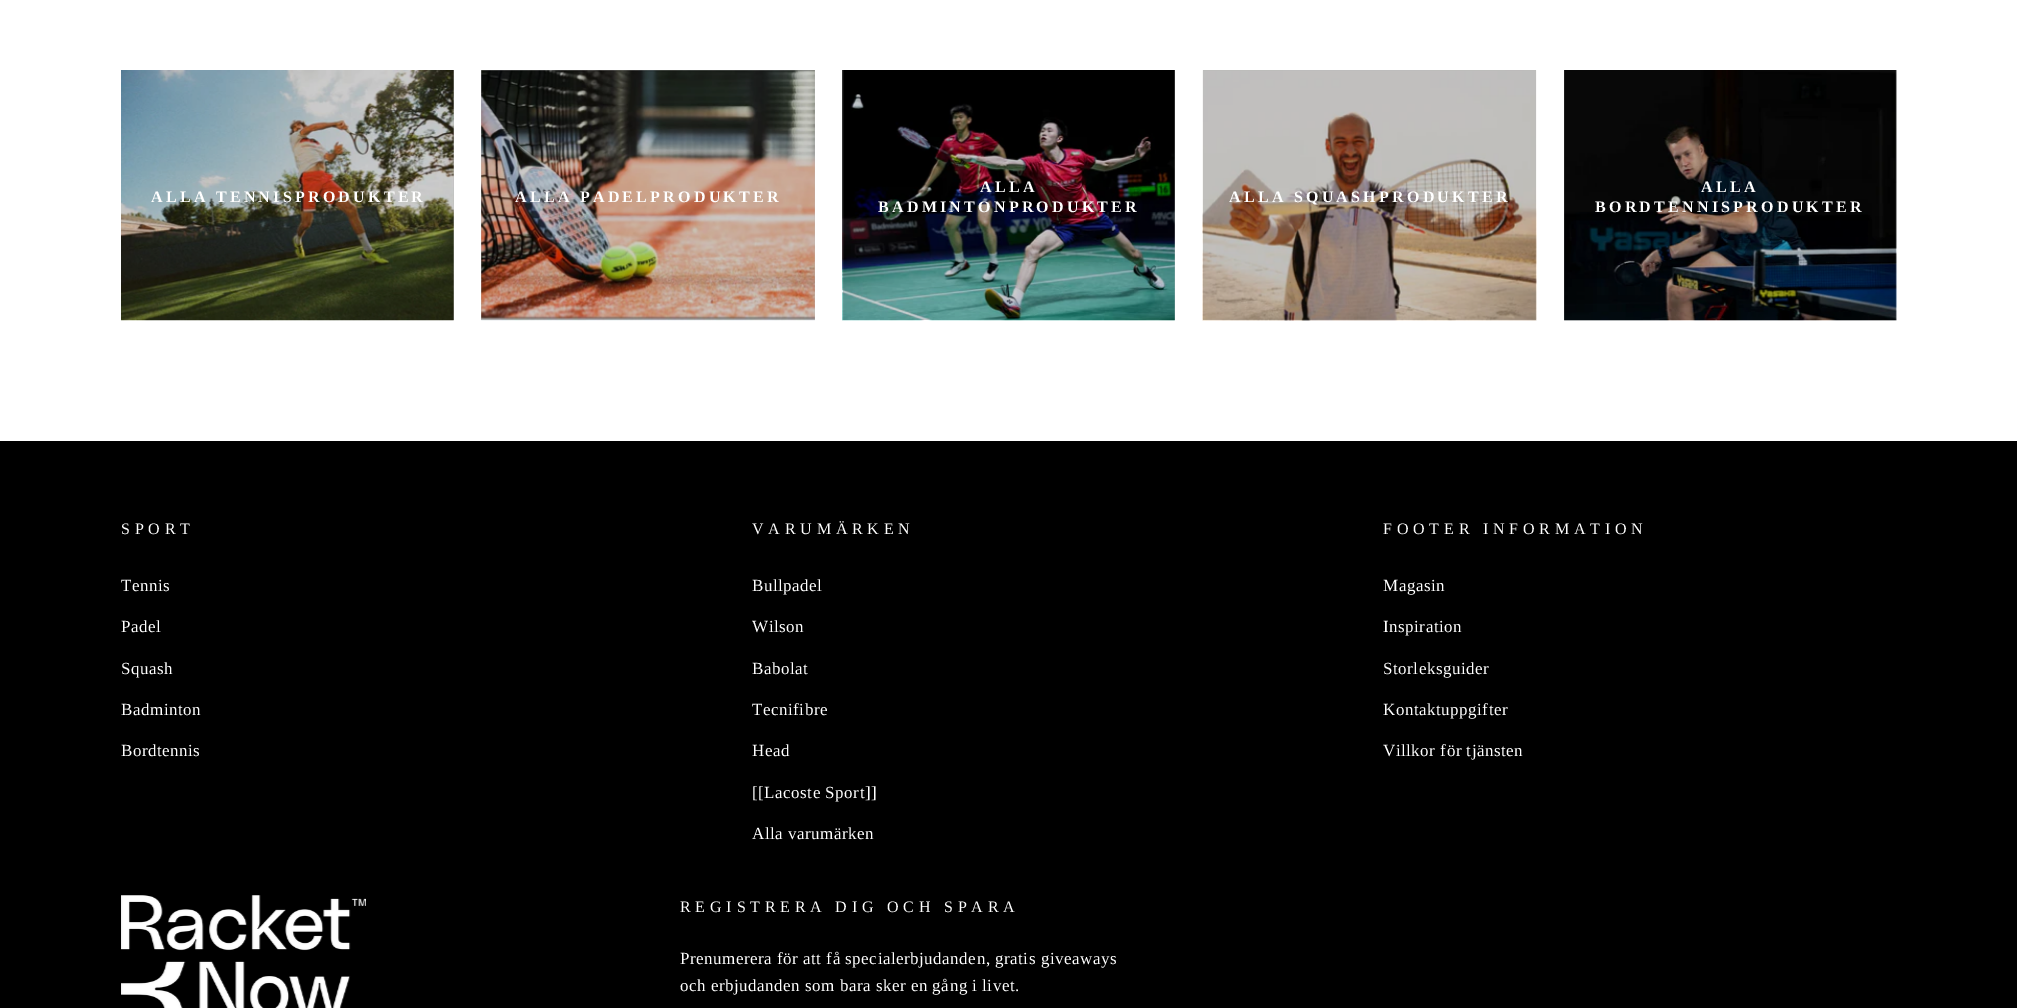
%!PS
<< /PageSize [2017 1008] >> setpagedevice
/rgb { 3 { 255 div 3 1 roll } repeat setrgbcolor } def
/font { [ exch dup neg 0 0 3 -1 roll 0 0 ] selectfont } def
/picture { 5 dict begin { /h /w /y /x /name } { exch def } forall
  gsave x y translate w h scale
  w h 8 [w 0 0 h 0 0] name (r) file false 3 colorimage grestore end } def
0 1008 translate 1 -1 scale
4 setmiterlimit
255 255 255 rgb
0 0 2017 1008 rectfill
183 183 183 rgb
453 70 1 250 rectfill
(img/1.rgb) 121 70 333 251 picture
481 70 334 250 rectfill
(img/2.rgb) 481 70 334 251 picture
(img/3.rgb) 842 70 333 251 picture
1203 70 333 250 rectfill
(img/4.rgb) 1202 70 335 251 picture
(img/5.rgb) 1564 70 333 251 picture
0 0 0 rgb
0 441 2017 567 rectfill
(img/6.rgb) 121 895 245 113 picture
/LiberationSerif-Bold 16 font
255 255 255 rgb
151 202 moveto 3.25 0 (ALLA TENNISPRODUKTER) ashow
515 202 moveto 3.25 0 (ALLA PADELPRODUKTER) ashow
980 192 moveto 3.25 0 (ALLA) ashow
878 212 moveto 3.25 0 (BADMINTONPRODUKTER) ashow
1229 202 moveto 3.25 0 (ALLA SQUASHPRODUKTER) ashow
1701 192 moveto 3.25 0 (ALLA) ashow
1595 212 moveto 3.25 0 (BORDTENNISPRODUKTER) ashow
/LiberationSerif-Regular 16 font
121 534 moveto 4.8 0 (SPORT) ashow
/LiberationSerif-Regular 17 font
121 591 moveto 0.5 0 (Tennis) ashow
121 632 moveto 0.5 0 (Padel) ashow
121 674 moveto 0.5 0 (Squash) ashow
121 715 moveto 0.5 0 (Badminton) ashow
121 756 moveto 0.5 0 (Bordtennis) ashow
/LiberationSerif-Regular 16 font
752 534 moveto 4.8 0 (VARUMÄRKEN) ashow
/LiberationSerif-Regular 17 font
752 591 moveto 0.5 0 (Bullpadel) ashow
752 632 moveto 0.5 0 (Wilson) ashow
752 674 moveto 0.5 0 (Babolat) ashow
752 715 moveto 0.5 0 (Tecnifibre) ashow
752 756 moveto 0.5 0 (Head) ashow
752 798 moveto 0.5 0 ([[Lacoste Sport]]) ashow
752 839 moveto 0.5 0 (Alla varumärken) ashow
/LiberationSerif-Regular 16 font
1383 534 moveto 4.8 0 (FOOTER INFORMATION) ashow
/LiberationSerif-Regular 17 font
1383 591 moveto 0.5 0 (Magasin) ashow
1383 632 moveto 0.5 0 (Inspiration) ashow
1383 674 moveto 0.5 0 (Storleksguider) ashow
1383 715 moveto 0.5 0 (Kontaktuppgifter) ashow
1383 756 moveto 0.5 0 (Villkor för tjänsten) ashow
/LiberationSerif-Regular 16 font
680 912 moveto 4.8 0 (REGISTRERA DIG OCH SPARA) ashow
/LiberationSerif-Regular 17 font
680 964 moveto 0.5 0 (Prenumerera för att få specialerbjudanden, gratis giveaways) ashow
680 991 moveto 0.5 0 (och erbjudanden som bara sker en gång i livet.) ashow
showpage
